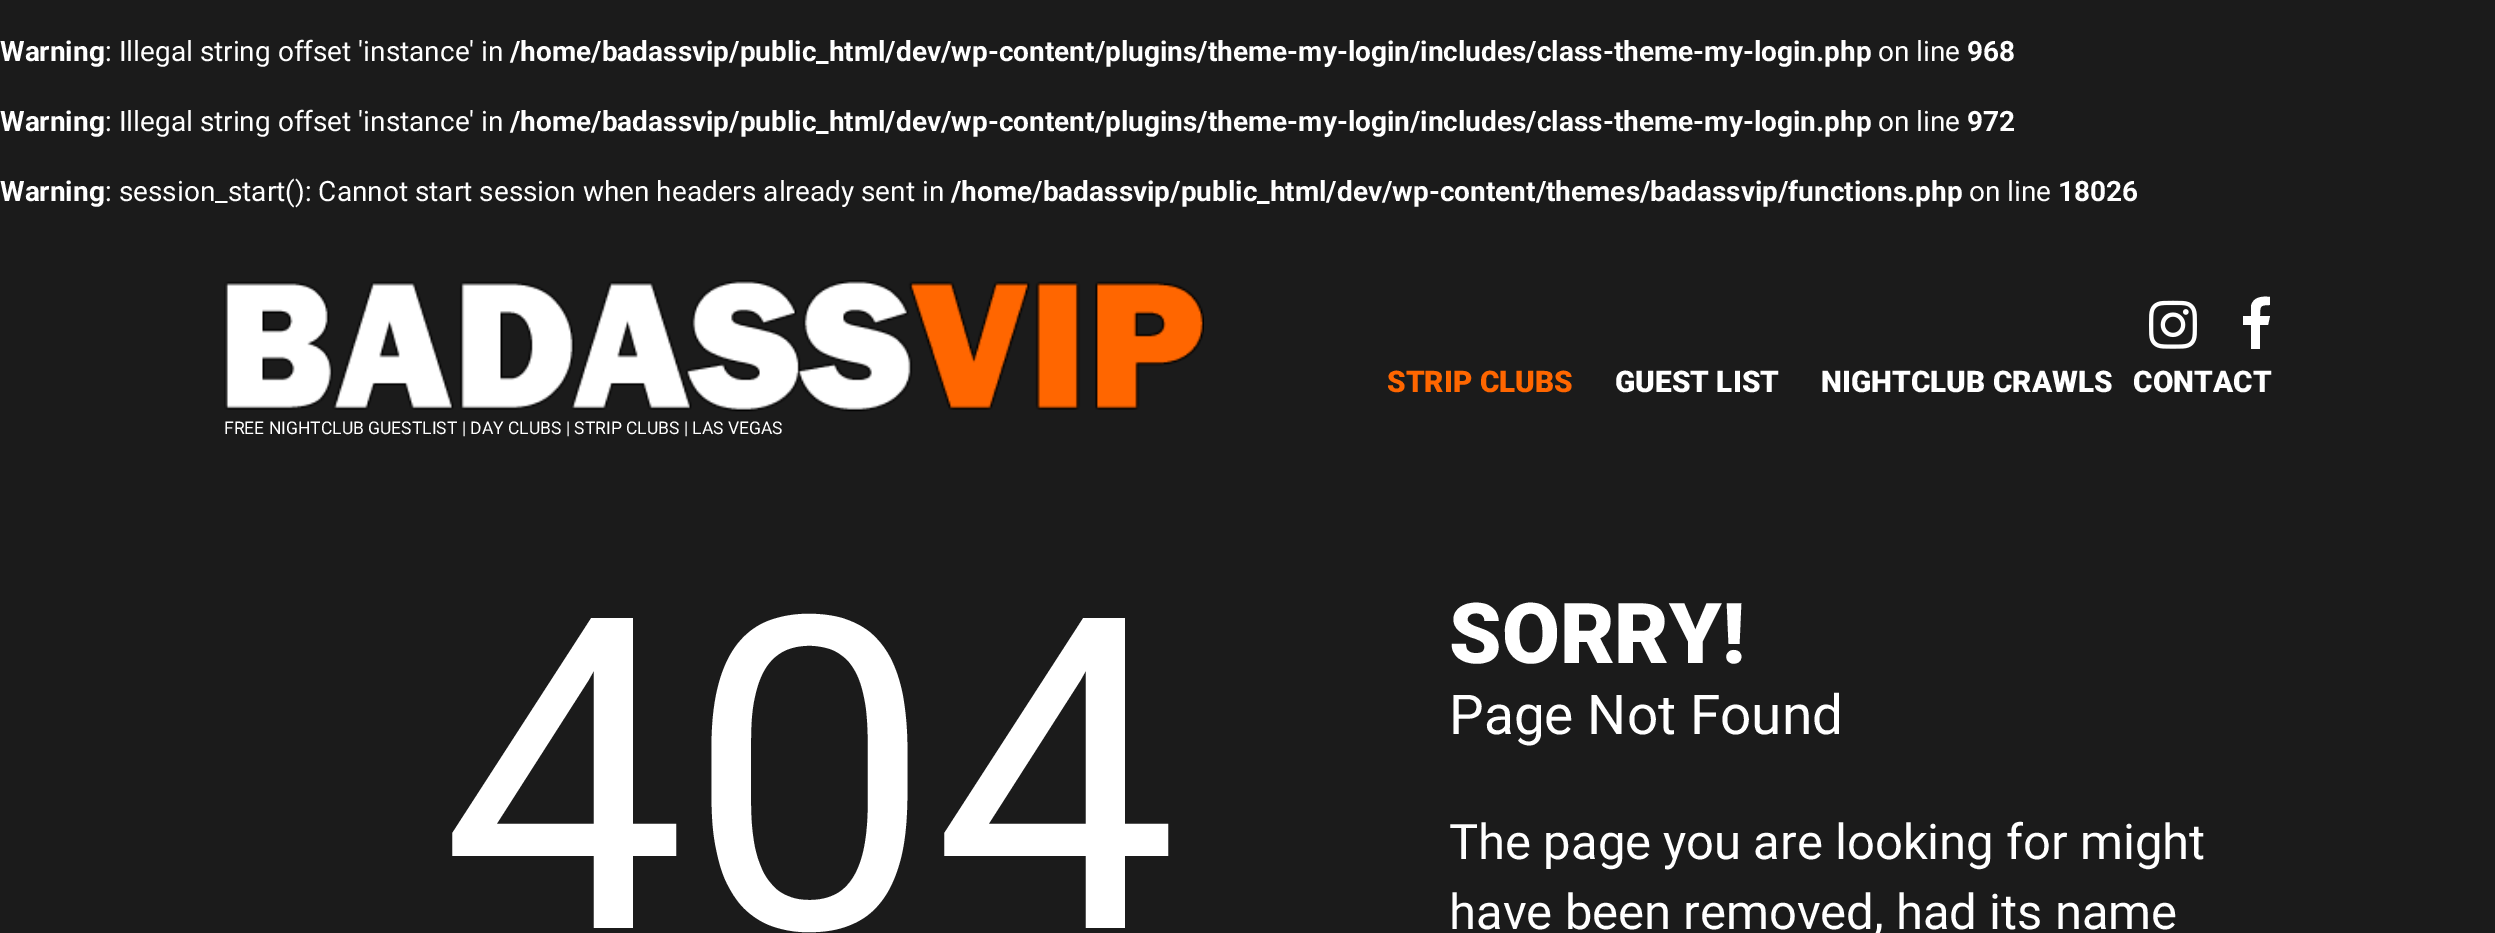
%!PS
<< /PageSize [2495 933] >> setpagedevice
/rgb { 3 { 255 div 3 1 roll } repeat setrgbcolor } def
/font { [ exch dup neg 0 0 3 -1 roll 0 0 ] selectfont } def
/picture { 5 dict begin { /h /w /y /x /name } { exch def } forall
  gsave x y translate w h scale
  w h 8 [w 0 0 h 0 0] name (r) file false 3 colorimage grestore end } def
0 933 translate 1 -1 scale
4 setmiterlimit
27 27 27 rgb
0 0 2495 933 rectfill
(img/1.rgb) 2149 300 48 49 picture
255 255 255 rgb
2270 297 moveto 2270 305 lineto 2260 305 2260 306 2260 316 curveto 2270 316 lineto 2268 325 lineto 2260 325 lineto 2260 349 lineto 2251 349 lineto 2251 325 lineto 2243 325 lineto 2243 316 lineto 2251 316 lineto 2251 306 lineto 2253 297 2262 296 2270 297 curveto closepath fill
(img/2.rgb) 224 280 980 132 picture
/Roboto-Bold 28 font
0 61 moveto (Warning) show
/Roboto-Regular 28 font
105 61 moveto (: Illegal string offset 'instance' in) show
/Roboto-Bold 28 font
510 61 moveto (/home/badassvip/public_html/dev/wp-content/plugins/theme-my-login/includes/class-theme-my-login.php) show
/Roboto-Regular 28 font
1878 61 moveto (on line) show
/Roboto-Bold 28 font
1967 61 moveto (968) show
0 131 moveto (Warning) show
/Roboto-Regular 28 font
105 131 moveto (: Illegal string offset 'instance' in) show
/Roboto-Bold 28 font
510 131 moveto (/home/badassvip/public_html/dev/wp-content/plugins/theme-my-login/includes/class-theme-my-login.php) show
/Roboto-Regular 28 font
1878 131 moveto (on line) show
/Roboto-Bold 28 font
1967 131 moveto (972) show
0 201 moveto (Warning) show
/Roboto-Regular 28 font
105 201 moveto (: session_start\(\): Cannot start session when headers already sent in) show
/Roboto-Bold 28 font
951 201 moveto (/home/badassvip/public_html/dev/wp-content/themes/badassvip/functions.php) show
/Roboto-Regular 28 font
1969 201 moveto (on line) show
/Roboto-Bold 28 font
2058 201 moveto (18026) show
/Roboto-Black 29.75 font
255 102 0 rgb
1387 392 moveto (STRIP CLUBS) show
255 255 255 rgb
[
  [(GUEST LIST) 1615 392]
  [(NIGHTCLUB CRAWLS) 1821 392]
  [(CONTACT) 2133 392]
] { aload pop moveto show } forall
/Roboto-Regular 17.5 font
224 434 moveto (FREE NIGHTCLUB GUESTLIST | DAY CLUBS | STRIP CLUBS | LAS VEGAS) show
/Roboto-Regular 438 font
441 928 moveto (404) show
/Roboto-Black 84 font
1449 663 moveto (SORRY!) show
/Roboto-Regular 55 font
1449 734 moveto (Page Not Found) show
/Roboto-Regular 49 font
1449 859 moveto (The page you are looking for might) show
1449 929 moveto (have been removed, had its name) show
showpage
